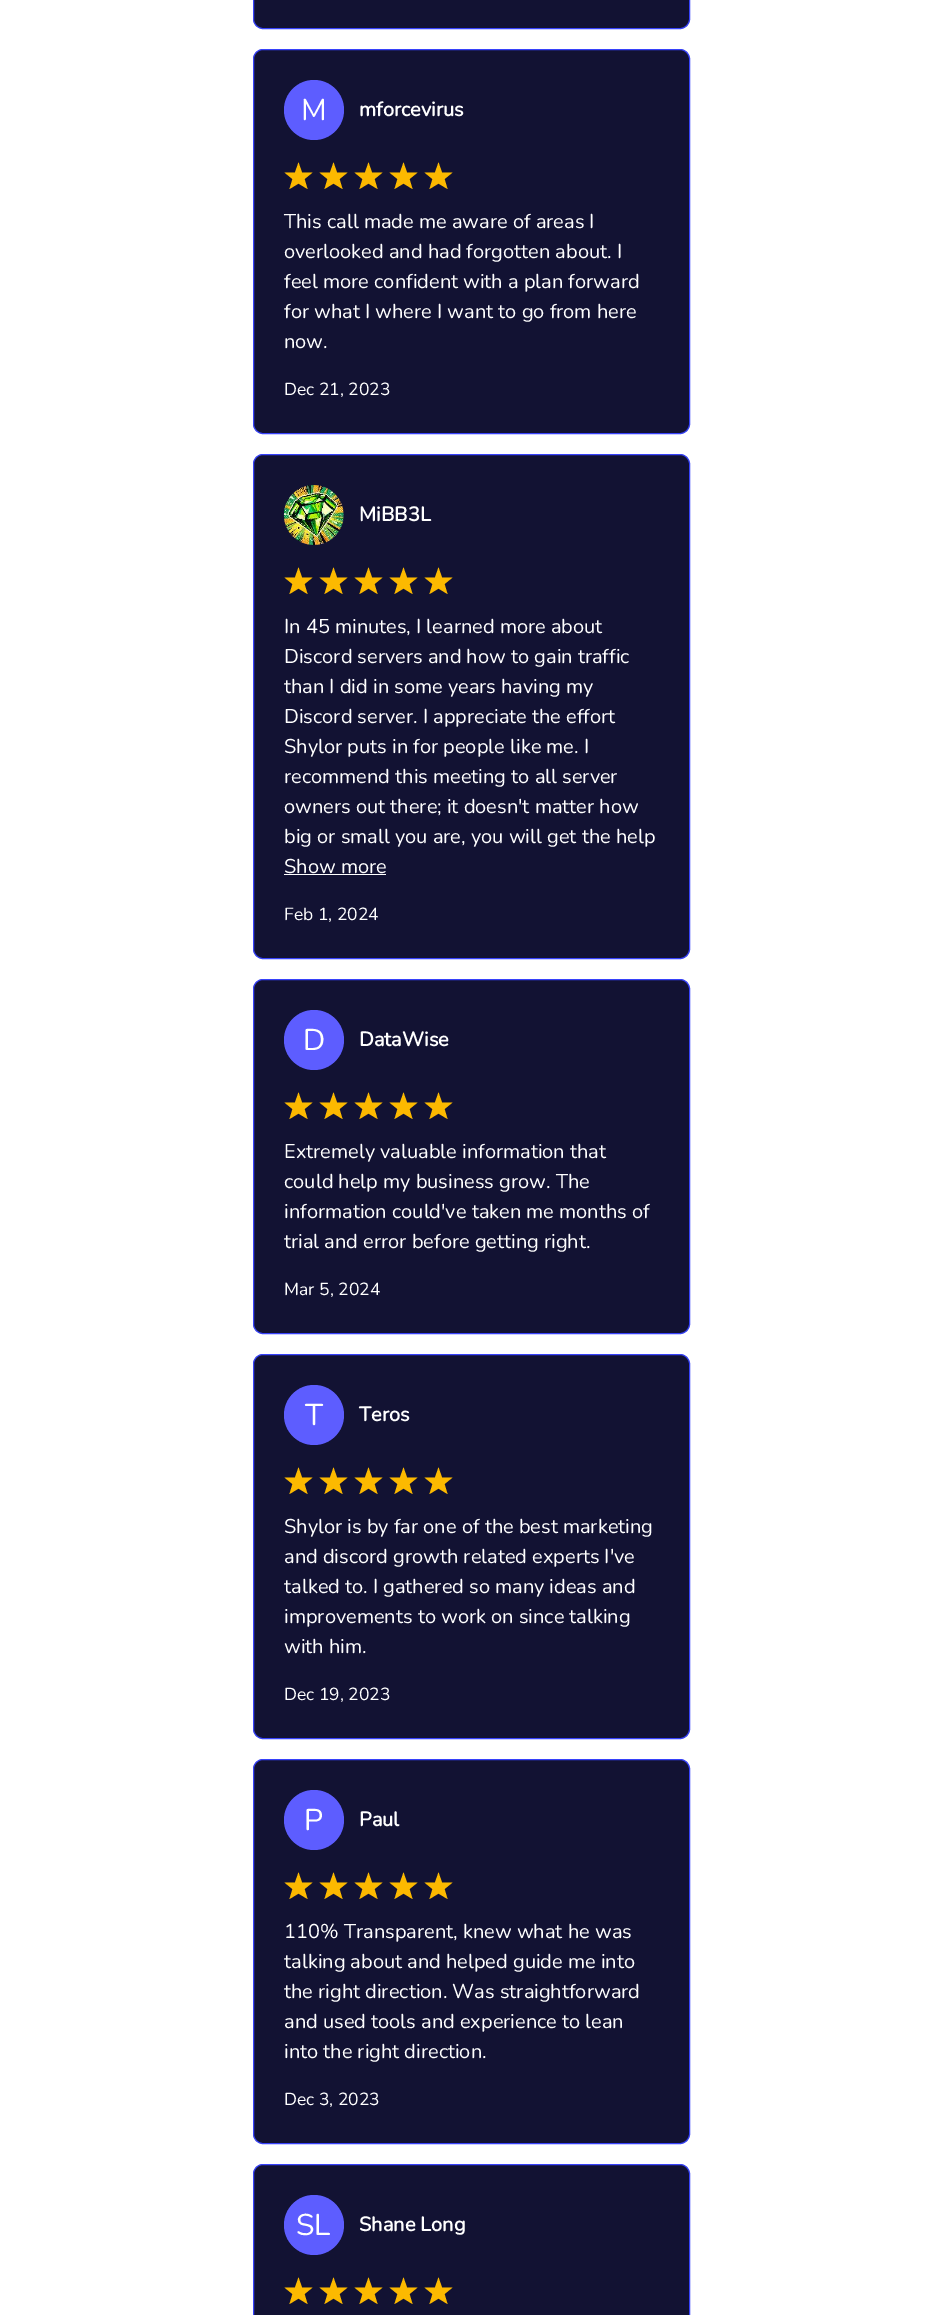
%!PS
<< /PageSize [942 2315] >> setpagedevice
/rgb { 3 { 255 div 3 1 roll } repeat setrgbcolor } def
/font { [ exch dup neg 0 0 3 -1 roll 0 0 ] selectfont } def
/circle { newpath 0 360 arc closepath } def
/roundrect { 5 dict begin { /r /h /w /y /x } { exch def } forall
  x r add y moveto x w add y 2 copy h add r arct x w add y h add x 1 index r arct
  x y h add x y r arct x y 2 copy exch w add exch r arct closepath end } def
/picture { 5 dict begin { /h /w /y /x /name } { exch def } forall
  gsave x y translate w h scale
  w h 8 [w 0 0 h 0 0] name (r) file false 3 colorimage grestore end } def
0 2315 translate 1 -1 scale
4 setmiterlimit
255 255 255 rgb
0 0 942 2315 rectfill
18 18 51 rgb
253.5 -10.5 436 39 9.5 roundrect gsave fill grestore
55 66 250 rgb
stroke
18 18 51 rgb
253.5 49.5 436 384 9.5 roundrect gsave fill grestore
55 66 250 rgb
stroke
93 93 255 rgb
314 110 30 circle fill
252 185 0 rgb
298.5 162.5 moveto 302 172.5 lineto 312.5 172.5 lineto 304.5 179 lineto 307.5 189 lineto 298.5 183.5 lineto 289.5 189 lineto 292.5 179 lineto 284.5 172.5 lineto 295 172.5 lineto closepath fill
333.5 162.5 moveto 337 172.5 lineto 347.5 172.5 lineto 339.5 179 lineto 342.5 189 lineto 333.5 183.5 lineto 324.5 189 lineto 327.5 179 lineto 319.5 172.5 lineto 330 172.5 lineto closepath fill
368.5 162.5 moveto 372 172.5 lineto 382.5 172.5 lineto 374.5 179 lineto 377.5 189 lineto 368.5 183.5 lineto 359.5 189 lineto 362.5 179 lineto 354.5 172.5 lineto 365 172.5 lineto closepath fill
403.5 162.5 moveto 407 172.5 lineto 417.5 172.5 lineto 409.5 179 lineto 412.5 189 lineto 403.5 183.5 lineto 394.5 189 lineto 397.5 179 lineto 389.5 172.5 lineto 400 172.5 lineto closepath fill
438.5 162.5 moveto 442 172.5 lineto 452.5 172.5 lineto 444.5 179 lineto 447.5 189 lineto 438.5 183.5 lineto 429.5 189 lineto 432.5 179 lineto 424.5 172.5 lineto 435 172.5 lineto closepath fill
18 18 51 rgb
253.5 454.5 436 504 9.5 roundrect gsave fill grestore
55 66 250 rgb
stroke
(img/1.rgb) 283 485 61 60 picture
252 185 0 rgb
298.5 567.5 moveto 302 577.5 lineto 312.5 577.5 lineto 304.5 584 lineto 307.5 594 lineto 298.5 588.5 lineto 289.5 594 lineto 292.5 584 lineto 284.5 577.5 lineto 295 577.5 lineto closepath fill
333.5 567.5 moveto 337 577.5 lineto 347.5 577.5 lineto 339.5 584 lineto 342.5 594 lineto 333.5 588.5 lineto 324.5 594 lineto 327.5 584 lineto 319.5 577.5 lineto 330 577.5 lineto closepath fill
368.5 567.5 moveto 372 577.5 lineto 382.5 577.5 lineto 374.5 584 lineto 377.5 594 lineto 368.5 588.5 lineto 359.5 594 lineto 362.5 584 lineto 354.5 577.5 lineto 365 577.5 lineto closepath fill
403.5 567.5 moveto 407 577.5 lineto 417.5 577.5 lineto 409.5 584 lineto 412.5 594 lineto 403.5 588.5 lineto 394.5 594 lineto 397.5 584 lineto 389.5 577.5 lineto 400 577.5 lineto closepath fill
438.5 567.5 moveto 442 577.5 lineto 452.5 577.5 lineto 444.5 584 lineto 447.5 594 lineto 438.5 588.5 lineto 429.5 594 lineto 432.5 584 lineto 424.5 577.5 lineto 435 577.5 lineto closepath fill
255 255 255 rgb
284 874 102 1 rectfill
18 18 51 rgb
253.5 979.5 436 354 9.5 roundrect gsave fill grestore
55 66 250 rgb
stroke
93 93 255 rgb
314 1040 30 circle fill
252 185 0 rgb
298.5 1092.5 moveto 302 1102.5 lineto 312.5 1102.5 lineto 304.5 1109 lineto 307.5 1119 lineto 298.5 1113.5 lineto 289.5 1119 lineto 292.5 1109 lineto 284.5 1102.5 lineto 295 1102.5 lineto closepath fill
333.5 1092.5 moveto 337 1102.5 lineto 347.5 1102.5 lineto 339.5 1109 lineto 342.5 1119 lineto 333.5 1113.5 lineto 324.5 1119 lineto 327.5 1109 lineto 319.5 1102.5 lineto 330 1102.5 lineto closepath fill
368.5 1092.5 moveto 372 1102.5 lineto 382.5 1102.5 lineto 374.5 1109 lineto 377.5 1119 lineto 368.5 1113.5 lineto 359.5 1119 lineto 362.5 1109 lineto 354.5 1102.5 lineto 365 1102.5 lineto closepath fill
403.5 1092.5 moveto 407 1102.5 lineto 417.5 1102.5 lineto 409.5 1109 lineto 412.5 1119 lineto 403.5 1113.5 lineto 394.5 1119 lineto 397.5 1109 lineto 389.5 1102.5 lineto 400 1102.5 lineto closepath fill
438.5 1092.5 moveto 442 1102.5 lineto 452.5 1102.5 lineto 444.5 1109 lineto 447.5 1119 lineto 438.5 1113.5 lineto 429.5 1119 lineto 432.5 1109 lineto 424.5 1102.5 lineto 435 1102.5 lineto closepath fill
18 18 51 rgb
253.5 1354.5 436 384 9.5 roundrect gsave fill grestore
55 66 250 rgb
stroke
93 93 255 rgb
314 1415 30 circle fill
252 185 0 rgb
298.5 1467.5 moveto 302 1477.5 lineto 312.5 1477.5 lineto 304.5 1484 lineto 307.5 1494 lineto 298.5 1488.5 lineto 289.5 1494 lineto 292.5 1484 lineto 284.5 1477.5 lineto 295 1477.5 lineto closepath fill
333.5 1467.5 moveto 337 1477.5 lineto 347.5 1477.5 lineto 339.5 1484 lineto 342.5 1494 lineto 333.5 1488.5 lineto 324.5 1494 lineto 327.5 1484 lineto 319.5 1477.5 lineto 330 1477.5 lineto closepath fill
368.5 1467.5 moveto 372 1477.5 lineto 382.5 1477.5 lineto 374.5 1484 lineto 377.5 1494 lineto 368.5 1488.5 lineto 359.5 1494 lineto 362.5 1484 lineto 354.5 1477.5 lineto 365 1477.5 lineto closepath fill
403.5 1467.5 moveto 407 1477.5 lineto 417.5 1477.5 lineto 409.5 1484 lineto 412.5 1494 lineto 403.5 1488.5 lineto 394.5 1494 lineto 397.5 1484 lineto 389.5 1477.5 lineto 400 1477.5 lineto closepath fill
438.5 1467.5 moveto 442 1477.5 lineto 452.5 1477.5 lineto 444.5 1484 lineto 447.5 1494 lineto 438.5 1488.5 lineto 429.5 1494 lineto 432.5 1484 lineto 424.5 1477.5 lineto 435 1477.5 lineto closepath fill
18 18 51 rgb
253.5 1759.5 436 384 9.5 roundrect gsave fill grestore
55 66 250 rgb
stroke
93 93 255 rgb
314 1820 30 circle fill
252 185 0 rgb
298.5 1872.5 moveto 302 1882.5 lineto 312.5 1882.5 lineto 304.5 1889 lineto 307.5 1899 lineto 298.5 1893.5 lineto 289.5 1899 lineto 292.5 1889 lineto 284.5 1882.5 lineto 295 1882.5 lineto closepath fill
333.5 1872.5 moveto 337 1882.5 lineto 347.5 1882.5 lineto 339.5 1889 lineto 342.5 1899 lineto 333.5 1893.5 lineto 324.5 1899 lineto 327.5 1889 lineto 319.5 1882.5 lineto 330 1882.5 lineto closepath fill
368.5 1872.5 moveto 372 1882.5 lineto 382.5 1882.5 lineto 374.5 1889 lineto 377.5 1899 lineto 368.5 1893.5 lineto 359.5 1899 lineto 362.5 1889 lineto 354.5 1882.5 lineto 365 1882.5 lineto closepath fill
403.5 1872.5 moveto 407 1882.5 lineto 417.5 1882.5 lineto 409.5 1889 lineto 412.5 1899 lineto 403.5 1893.5 lineto 394.5 1899 lineto 397.5 1889 lineto 389.5 1882.5 lineto 400 1882.5 lineto closepath fill
438.5 1872.5 moveto 442 1882.5 lineto 452.5 1882.5 lineto 444.5 1889 lineto 447.5 1899 lineto 438.5 1893.5 lineto 429.5 1899 lineto 432.5 1889 lineto 424.5 1882.5 lineto 435 1882.5 lineto closepath fill
18 18 51 rgb
253.5 2164.5 436 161 9.5 roundrect gsave fill grestore
55 66 250 rgb
stroke
93 93 255 rgb
314 2225 30 circle fill
252 185 0 rgb
298.5 2277.5 moveto 302 2287.5 lineto 312.5 2287.5 lineto 304.5 2294 lineto 307.5 2304 lineto 298.5 2298.5 lineto 289.5 2304 lineto 292.5 2294 lineto 284.5 2287.5 lineto 295 2287.5 lineto closepath fill
333.5 2277.5 moveto 337 2287.5 lineto 347.5 2287.5 lineto 339.5 2294 lineto 342.5 2304 lineto 333.5 2298.5 lineto 324.5 2304 lineto 327.5 2294 lineto 319.5 2287.5 lineto 330 2287.5 lineto closepath fill
368.5 2277.5 moveto 372 2287.5 lineto 382.5 2287.5 lineto 374.5 2294 lineto 377.5 2304 lineto 368.5 2298.5 lineto 359.5 2304 lineto 362.5 2294 lineto 354.5 2287.5 lineto 365 2287.5 lineto closepath fill
403.5 2277.5 moveto 407 2287.5 lineto 417.5 2287.5 lineto 409.5 2294 lineto 412.5 2304 lineto 403.5 2298.5 lineto 394.5 2304 lineto 397.5 2294 lineto 389.5 2287.5 lineto 400 2287.5 lineto closepath fill
438.5 2277.5 moveto 442 2287.5 lineto 452.5 2287.5 lineto 444.5 2294 lineto 447.5 2304 lineto 438.5 2298.5 lineto 429.5 2304 lineto 432.5 2294 lineto 424.5 2287.5 lineto 435 2287.5 lineto closepath fill
/Nunito-ExtraLight 30 font
255 255 255 rgb
301 120 moveto (M) show
/Nunito-Bold 20 font
359 116 moveto (mforcevirus) show
/Nunito-ExtraLight 20 font
[
  [(This call made me aware of areas I) 284 228]
  [(overlooked and had forgotten about. I) 284 258]
  [(feel more confident with a plan forward) 284 288]
  [(for what I where I want to go from here) 284 318]
  [(now.) 284 348]
] { aload pop moveto show } forall
/Nunito-ExtraLight 17.5 font
284 395 moveto (Dec 21, 2023) show
/Nunito-Bold 20 font
359 521 moveto (MiBB3L) show
/Nunito-ExtraLight 20 font
[
  [(In 45 minutes, I learned more about) 284 633]
  [(Discord servers and how to gain traffic) 284 663]
  [(than I did in some years having my) 284 693]
  [(Discord server. I appreciate the effort) 284 723]
  [(Shylor puts in for people like me. I) 284 753]
  [(recommend this meeting to all server) 284 783]
  [(owners out there; it doesn't matter how) 284 813]
  [(big or small you are, you will get the help) 284 843]
  [(Show more) 284 873]
] { aload pop moveto show } forall
/Nunito-ExtraLight 17.5 font
284 920 moveto (Feb 1, 2024) show
/Nunito-ExtraLight 30 font
303 1050 moveto (D) show
/Nunito-Bold 20 font
359 1046 moveto (DataWise) show
/Nunito-ExtraLight 20 font
[
  [(Extremely valuable information that) 284 1158]
  [(could help my business grow. The) 284 1188]
  [(information could've taken me months of) 284 1218]
  [(trial and error before getting right.) 284 1248]
] { aload pop moveto show } forall
/Nunito-ExtraLight 17.5 font
284 1295 moveto (Mar 5, 2024) show
/Nunito-ExtraLight 30 font
305 1425 moveto (T) show
/Nunito-Bold 20 font
359 1421 moveto (Teros) show
/Nunito-ExtraLight 20 font
[
  [(Shylor is by far one of the best marketing) 284 1533]
  [(and discord growth related experts I've) 284 1563]
  [(talked to. I gathered so many ideas and) 284 1593]
  [(improvements to work on since talking) 284 1623]
  [(with him.) 284 1653]
] { aload pop moveto show } forall
/Nunito-ExtraLight 17.5 font
284 1700 moveto (Dec 19, 2023) show
/Nunito-ExtraLight 30 font
304 1830 moveto (P) show
/Nunito-Bold 20 font
359 1826 moveto (Paul) show
/Nunito-ExtraLight 20 font
[
  [(110% Transparent, knew what he was) 284 1938]
  [(talking about and helped guide me into) 284 1968]
  [(the right direction. Was straightforward) 284 1998]
  [(and used tools and experience to lean) 284 2028]
  [(into the right direction.) 284 2058]
] { aload pop moveto show } forall
/Nunito-ExtraLight 17.5 font
284 2105 moveto (Dec 3, 2023) show
/Nunito-ExtraLight 30 font
296 2235 moveto (SL) show
/Nunito-Bold 20 font
359 2231 moveto (Shane Long) show
showpage
